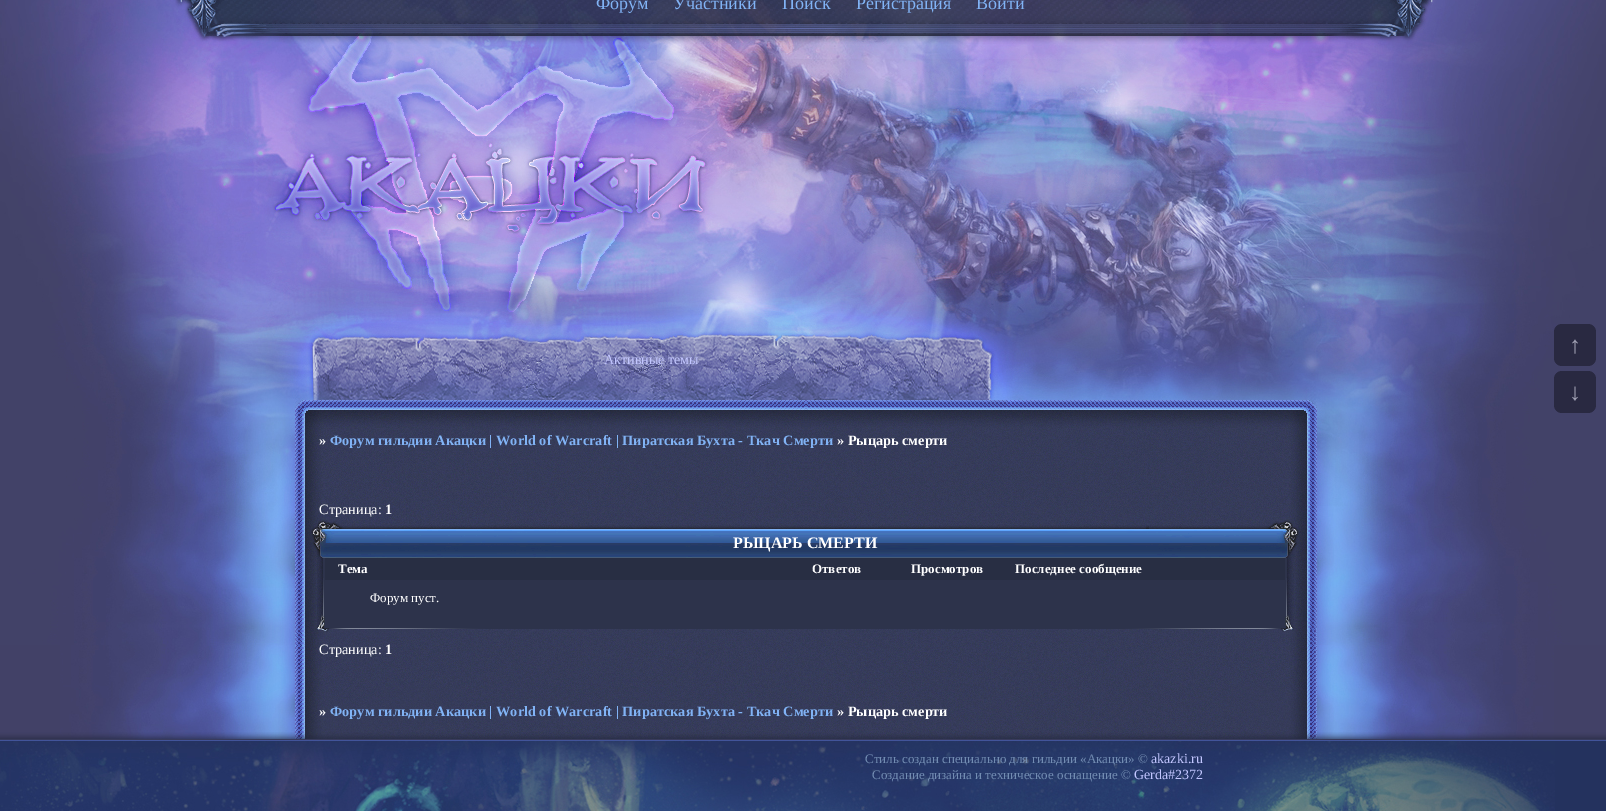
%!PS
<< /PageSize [1606 811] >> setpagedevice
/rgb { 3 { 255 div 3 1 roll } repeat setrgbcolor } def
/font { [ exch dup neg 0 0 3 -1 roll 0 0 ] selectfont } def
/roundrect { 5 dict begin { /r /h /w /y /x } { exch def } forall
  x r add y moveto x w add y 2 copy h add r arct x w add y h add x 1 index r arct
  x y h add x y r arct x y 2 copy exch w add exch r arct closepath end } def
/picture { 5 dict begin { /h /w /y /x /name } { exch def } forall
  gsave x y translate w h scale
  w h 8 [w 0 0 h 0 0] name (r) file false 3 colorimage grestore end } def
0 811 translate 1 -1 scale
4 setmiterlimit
66 65 103 rgb
0 0 1606 811 rectfill
(img/1.rgb) 60 731 1494 8 picture
(img/2.rgb) 60 645 1494 86 picture
(img/3.rgb) 0 0 1606 645 picture
(img/4.rgb) 0 732 1606 79 picture
(img/5.rgb) 0 741 1555 70 picture
41 41 65 rgb
1554 324 42 42 8 roundrect fill
1554 371 42 42 8 roundrect fill
(img/6.rgb) 311 520 988 38 picture
(img/7.rgb) 317 558 977 71 picture
(img/8.rgb) 314 578 982 58 picture
40 46 67 rgb
325 558 960 22 rectfill
/LiberationSerif-Regular 18 font
129 179 245 rgb
[
  [(Форум) 596 9]
  [(Участники) 673 9]
  [(Поиск) 782 9]
  [(Регистрация) 856 9]
  [(Войти) 976 9]
] { aload pop moveto show } forall
/LiberationSerif-Regular 14 font
194 198 255 rgb
604 364 moveto (Активные темы) show
/LiberationSerif-Bold 24 font
161 161 180 rgb
1569 353 moveto (↑) show
1569 400 moveto (↓) show
/LiberationSerif-Regular 13 font
114 140 178 rgb
865 763 moveto (Стиль создан специально для гильдии «Акацки» ©) show
/LiberationSerif-Regular 14 font
194 198 255 rgb
1151 763 moveto (akazki.ru) show
/LiberationSerif-Regular 13 font
114 140 178 rgb
872 779 moveto (Создание дизайна и техническое оснащение ©) show
/LiberationSerif-Regular 14 font
194 198 255 rgb
1134 779 moveto (Gerda#2372) show
/LiberationSerif-Bold 14.3 font
255 255 255 rgb
319 445 moveto (») show
129 179 245 rgb
330 445 moveto (Форум гильдии Акацки | World of Warcraft | Пиратская Бухта - Ткач Смерти) show
255 255 255 rgb
837 445 moveto (» Рыцарь смерти) show
/LiberationSerif-Regular 14.3 font
319 514 moveto (Страница:) show
/LiberationSerif-Bold 14.3 font
385 514 moveto (1) show
/LiberationSerif-Bold 16 font
733 548 moveto (РЫЦАРЬ СМЕРТИ) show
/LiberationSerif-Bold 13 font
[
  [(Тема) 338 573]
  [(Ответов) 812 573]
  [(Просмотров) 911 573]
  [(Последнее сообщение) 1015 573]
] { aload pop moveto show } forall
/LiberationSerif-Regular 13 font
370 602 moveto (Форум пуст.) show
/LiberationSerif-Regular 14.3 font
319 654 moveto (Страница:) show
/LiberationSerif-Bold 14.3 font
385 654 moveto (1) show
319 716 moveto (») show
129 179 245 rgb
330 716 moveto (Форум гильдии Акацки | World of Warcraft | Пиратская Бухта - Ткач Смерти) show
255 255 255 rgb
837 716 moveto (» Рыцарь смерти) show
showpage
